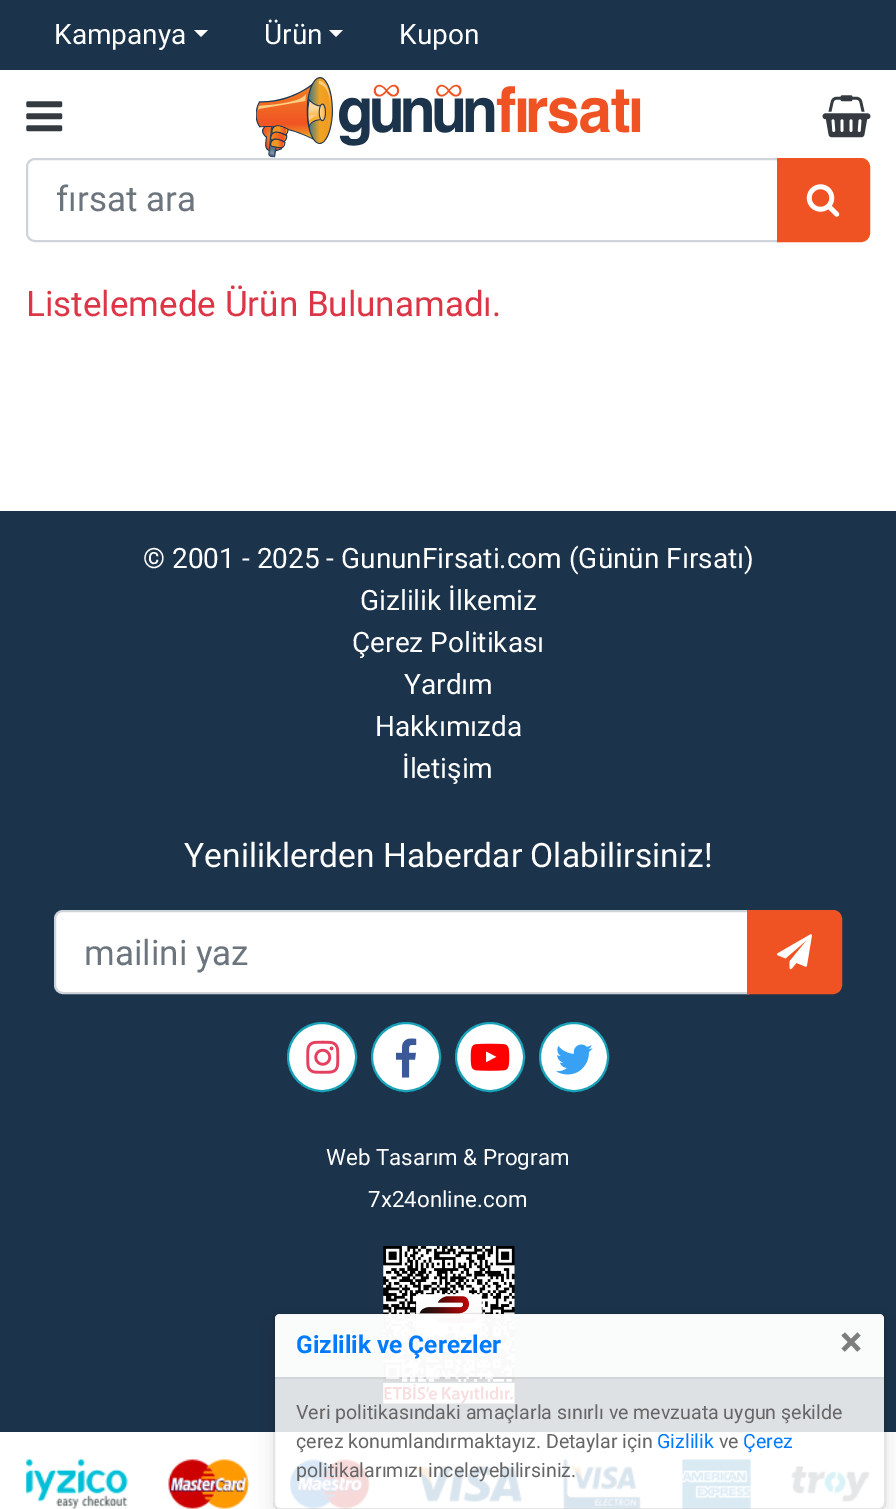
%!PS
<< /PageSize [896 1509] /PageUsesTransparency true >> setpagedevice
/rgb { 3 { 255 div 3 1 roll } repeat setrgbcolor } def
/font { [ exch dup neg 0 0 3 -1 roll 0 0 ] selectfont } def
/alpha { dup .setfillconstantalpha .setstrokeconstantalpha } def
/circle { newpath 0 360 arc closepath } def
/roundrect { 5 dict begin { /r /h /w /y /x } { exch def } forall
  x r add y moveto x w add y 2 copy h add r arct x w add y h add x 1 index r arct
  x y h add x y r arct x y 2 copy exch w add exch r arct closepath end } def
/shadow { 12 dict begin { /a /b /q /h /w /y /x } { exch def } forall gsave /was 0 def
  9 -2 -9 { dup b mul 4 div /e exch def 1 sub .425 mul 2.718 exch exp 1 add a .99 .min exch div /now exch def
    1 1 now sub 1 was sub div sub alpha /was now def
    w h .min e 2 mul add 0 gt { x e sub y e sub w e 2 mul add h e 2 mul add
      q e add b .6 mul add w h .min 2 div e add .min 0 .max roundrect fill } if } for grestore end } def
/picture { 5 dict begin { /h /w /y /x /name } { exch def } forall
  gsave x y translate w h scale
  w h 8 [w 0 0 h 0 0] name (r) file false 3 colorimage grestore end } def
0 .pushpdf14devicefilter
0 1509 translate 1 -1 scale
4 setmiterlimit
255 255 255 rgb
0 0 896 1509 rectfill
27 51 75 rgb
0 0 896 70 rectfill
255 255 255 rgb
194 30 moveto 208 30 lineto 201 37 lineto closepath fill
329 30 moveto 343 30 lineto 336 37 lineto closepath fill
(img/1.rgb) 26 101 37 31 picture
(img/2.rgb) 822 95 49 43 picture
(img/3.rgb) 256 77 385 81 picture
206 212 218 rgb
2 setlinewidth
35 159 moveto 778 159 lineto 778 241 lineto 35 241 lineto 30.5 241 27 237.5 27 233 curveto 27 167 lineto 27 162.5 30.5 159 35 159 curveto closepath stroke
240 83 35 rgb
778 159 moveto 861 159 lineto 865.5 159 869 162.5 869 167 curveto 869 233 lineto 869 237.5 865.5 241 861 241 curveto 778 241 lineto closepath gsave fill grestore
stroke
(img/4.rgb) 806 184 34 33 picture
27 51 75 rgb
0 511 896 921 rectfill
255 255 255 rgb
63 911 moveto 748 911 lineto 748 993 lineto 63 993 lineto 58.5 993 55 989.5 55 985 curveto 55 919 lineto 55 914.5 58.5 911 63 911 curveto closepath gsave fill grestore
206 212 218 rgb
stroke
240 83 35 rgb
748 911 moveto 833 911 lineto 837.5 911 841 914.5 841 919 curveto 841 985 lineto 841 989.5 837.5 993 833 993 curveto 748 993 lineto closepath gsave fill grestore
stroke
(img/5.rgb) 777 934 35 36 picture
255 255 255 rgb
322 1057 34 circle gsave fill grestore
23 162 184 rgb
stroke
(img/6.rgb) 306 1040 34 34 picture
255 255 255 rgb
406 1057 34 circle gsave fill grestore
23 162 184 rgb
stroke
(img/7.rgb) 395 1038 22 40 picture
255 255 255 rgb
490 1057 34 circle gsave fill grestore
23 162 184 rgb
stroke
(img/8.rgb) 470 1043 40 28 picture
255 255 255 rgb
574 1057 34 circle gsave fill grestore
23 162 184 rgb
stroke
(img/9.rgb) 556 1044 37 31 picture
(img/10.rgb) 383 1246 132 158 picture
(img/11.rgb) 26 1459 844 50 picture
gsave
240 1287 moveto 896 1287 lineto 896 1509 lineto 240 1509 lineto closepath 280 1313 moveto 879 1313 lineto 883 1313 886 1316 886 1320 curveto 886 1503 lineto 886 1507 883 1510 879 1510 curveto 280 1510 lineto 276 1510 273 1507 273 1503 curveto 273 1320 lineto 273 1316 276 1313 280 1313 curveto closepath eoclip newpath
0 0 0 rgb
273 1320 613 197 7 10.5 0.1 shadow
grestore
0.85 alpha
255 255 255 rgb
275 1314 609 195 5 roundrect fill
0.1 alpha
0 0 0 rgb
274 1314 611 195 6 roundrect stroke
0.85 alpha
255 255 255 rgb
280 1314 moveto 879 1314 lineto 882 1314 884 1316 884 1319 curveto 884 1377 lineto 275 1377 lineto 275 1319 lineto 275 1316 277 1314 280 1314 curveto closepath fill
0.05 alpha
0 0 0 rgb
275 1377 609 2 rectfill
/Roboto-Regular 28 font
1 alpha
255 255 255 rgb
[
  [(Kampanya) 54 44]
  [(Ürün) 264 44]
  [(Kupon) 399 44]
] { aload pop moveto show } forall
/Roboto-Regular 35 font
108 117 125 rgb
56 211 moveto (fırsat ara) show
220 53 69 rgb
26 316 moveto (Listelemede Ürün Bulunamadı.) show
/Roboto-Regular 28 font
255 255 255 rgb
[
  [(© 2001 - 2025 - GununFirsati.com \(Günün Fırsatı\)) 143 568]
  [(Gizlilik İlkemiz) 360 610]
  [(Çerez Politikası) 352 652]
  [(Yardım) 404 694]
  [(Hakkımızda) 375 736]
  [(İletişim) 402 778]
] { aload pop moveto show } forall
/Roboto-Regular 33.6 font
184 867 moveto (Yeniliklerden Haberdar Olabilirsiniz!) show
/Roboto-Regular 35 font
108 117 125 rgb
84 965 moveto (mailini yaz) show
/Roboto-Regular 22.4 font
255 255 255 rgb
326 1165 moveto (Web Tasarım & Program) show
368 1207 moveto (7x24online.com) show
/Roboto-Bold 24.5 font
0 123 255 rgb
296 1353 moveto (Gizlilik ve Çerezler) show
/Roboto-Bold 42 font
125 125 125 rgb
840 1356 moveto (×) show
/Roboto-Regular 19.6 font
102 102 102 rgb
296 1419 moveto (Veri politikasındaki amaçlarla sınırlı ve mevzuata uygun şekilde) show
296 1448 moveto (çerez konumlandırmaktayız. Detaylar için) show
0 123 255 rgb
657 1448 moveto (Gizlilik) show
102 102 102 rgb
719 1448 moveto (ve) show
0 123 255 rgb
743 1448 moveto (Çerez) show
102 102 102 rgb
296 1477 moveto (politikalarımızı inceleyebilirsiniz.) show
.poppdf14devicefilter showpage
